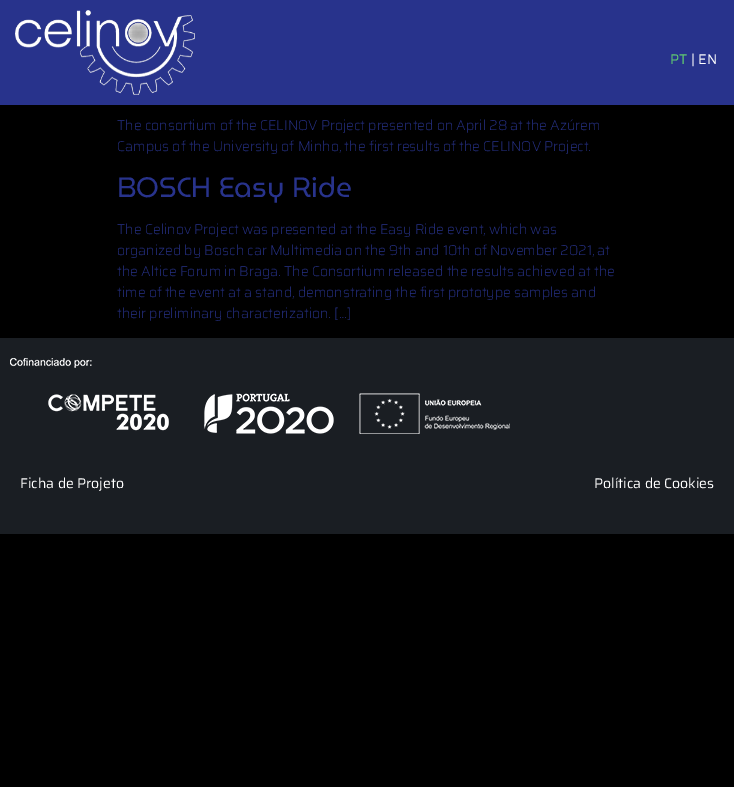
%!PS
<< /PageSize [734 787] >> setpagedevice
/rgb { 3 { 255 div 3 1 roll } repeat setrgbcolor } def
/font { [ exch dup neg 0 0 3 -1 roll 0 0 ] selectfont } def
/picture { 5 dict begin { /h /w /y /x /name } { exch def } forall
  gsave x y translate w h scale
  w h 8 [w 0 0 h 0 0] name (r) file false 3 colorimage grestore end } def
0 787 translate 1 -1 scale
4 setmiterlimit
0 0 0 rgb
0 0 734 787 rectfill
40 51 140 rgb
0 0 734 105 rectfill
(img/1.rgb) 15 10 180 85 picture
26 30 35 rgb
0 338 734 196 rectfill
(img/2.rgb) 10 358 500 76 picture
/Saira-Regular 14 font
97 206 112 rgb
670 64 moveto (PT) show
255 255 255 rgb
691 64 moveto (| EN) show
/Saira-ExtraLight 14 font
40 51 140 rgb
117 130 moveto (The consortium of the CELINOV Project presented on April 28 at the Azúrem) show
117 151 moveto (Campus of the University of Minho, the first results of the CELINOV Project.) show
/MuseoModerno-Regular 28 font
117 197 moveto (BOSCH Easy Ride) show
/Saira-ExtraLight 14 font
[
  [(The Celinov Project was presented at the Easy Ride event, which was) 117 234]
  [(organized by Bosch car Multimedia on the 9th and 10th of November 2021, at) 117 255]
  [(the Altice Forum in Braga. The Consortium released the results achieved at the) 117 276]
  [(time of the event at a stand, demonstrating the first prototype samples and) 117 297]
  [(their preliminary characterization. […]) 117 318]
] { aload pop moveto show } forall
/Saira-Regular 14 font
255 255 255 rgb
20 488 moveto (Ficha de Projeto) show
594 488 moveto (Política de Cookies) show
showpage
